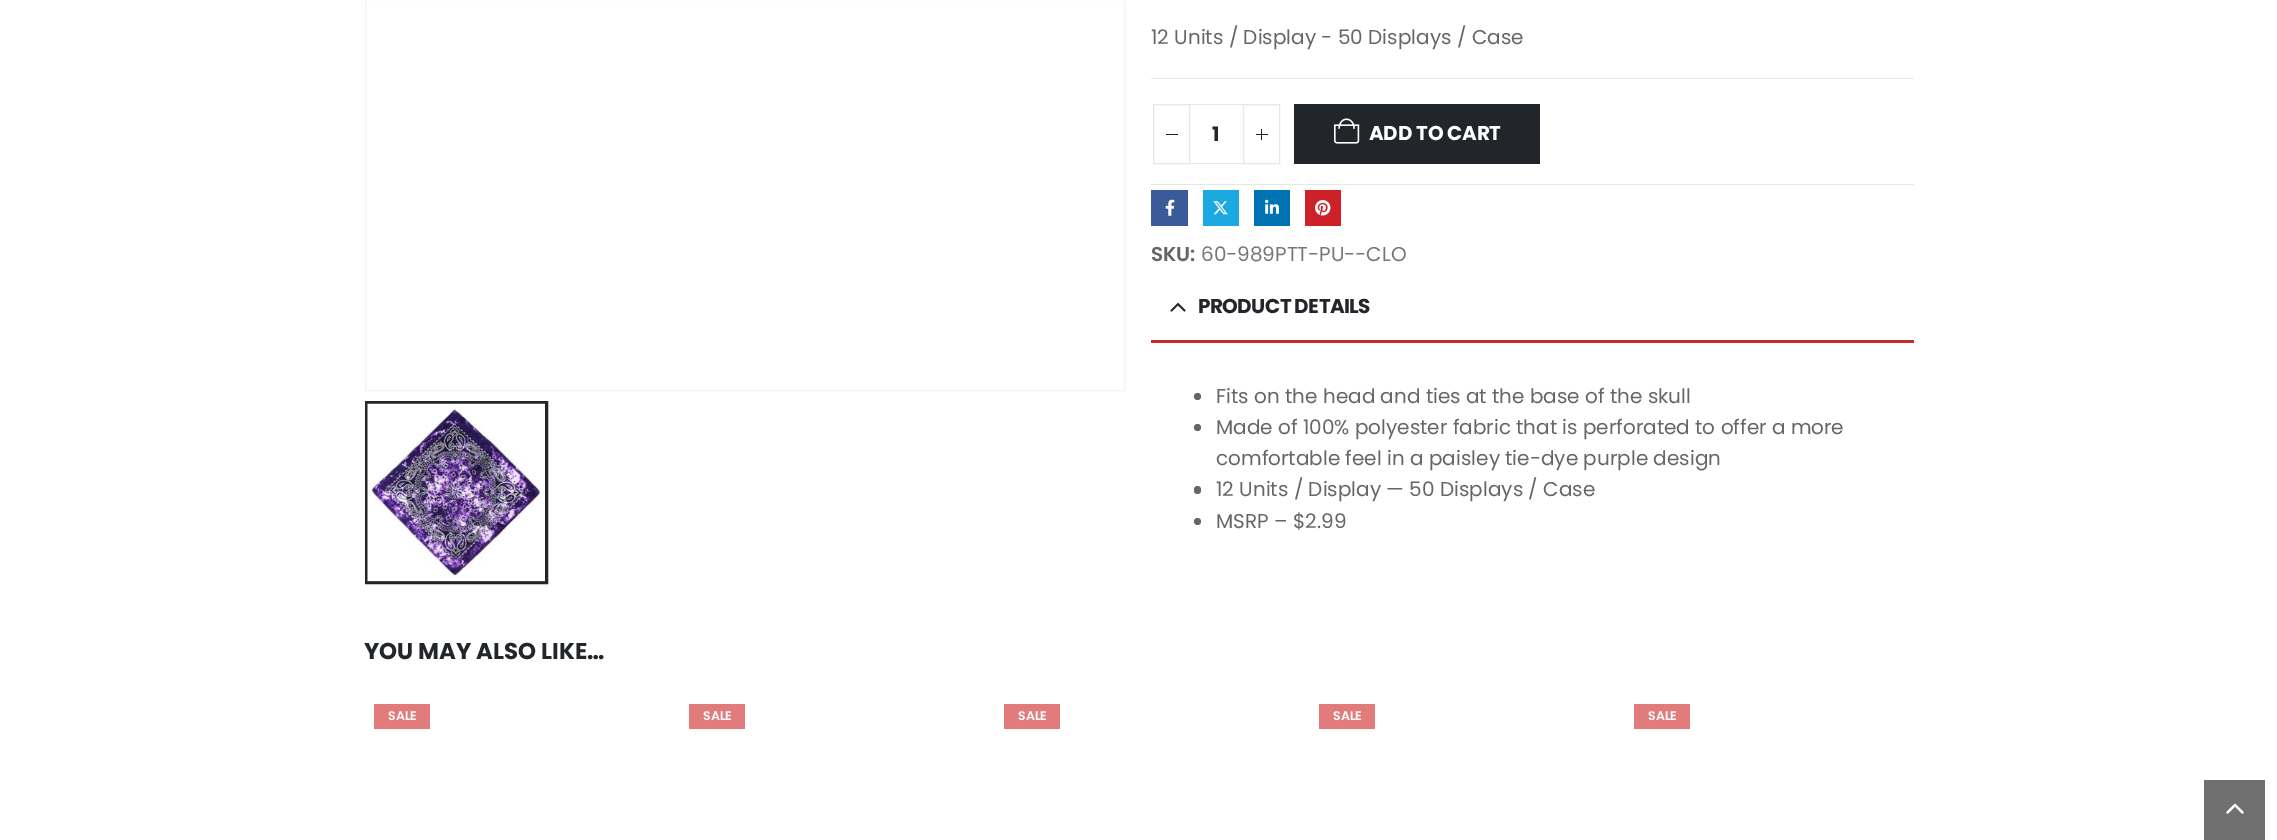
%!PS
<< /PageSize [2277 840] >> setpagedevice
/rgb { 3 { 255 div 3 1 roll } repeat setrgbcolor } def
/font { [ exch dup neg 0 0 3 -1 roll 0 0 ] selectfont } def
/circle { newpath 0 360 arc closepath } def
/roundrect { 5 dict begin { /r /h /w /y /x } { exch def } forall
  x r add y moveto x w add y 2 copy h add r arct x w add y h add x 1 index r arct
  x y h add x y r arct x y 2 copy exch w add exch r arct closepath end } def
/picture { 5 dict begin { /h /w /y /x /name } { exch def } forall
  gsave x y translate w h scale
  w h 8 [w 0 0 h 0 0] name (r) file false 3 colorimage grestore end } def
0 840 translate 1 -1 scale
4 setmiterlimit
255 255 255 rgb
0 0 2277 840 rectfill
244 244 244 rgb
365.5 -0.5 759 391 rectstroke
34 37 41 rgb
3 setlinewidth
366.5 402.5 180 180 rectstroke
(img/1.rgb) 367 403 178 179 picture
[
  [1151 78 763 1 231 231 231]
  [1151 184 763 1 231 231 231]
  [1189 104 55 1 231 231 231]
  [1189 163 55 1 231 231 231]
] { aload pop rgb rectfill } forall
1 setlinewidth
1153.5 104.5 36 59 rectstroke
34 37 41 rgb
1166 134 12 1 rectfill
231 231 231 rgb
1243.5 104.5 36 59 rectstroke
[
  [1256 134 12 1 34 37 41]
  [1261 129 1 11 34 37 41]
  [1294 104 246 60 34 37 41]
] { aload pop rgb rectfill } forall
(img/2.rgb) 1334 118 26 26 picture
59 90 154 rgb
1151 190 37 36 rectfill
(img/3.rgb) 1165 199 10 17 picture
26 169 225 rgb
1203 190 36 36 rectfill
(img/4.rgb) 1213 201 15 14 picture
0 115 178 rgb
1254 190 36 36 rectfill
(img/5.rgb) 1265 199 14 15 picture
204 33 39 rgb
1305 190 36 36 rectfill
(img/6.rgb) 1315 200 16 16 picture
196 45 45 rgb
1151 340 763 3 rectfill
(img/7.rgb) 1170 302 16 10 picture
102 102 102 rgb
1197.5 396.5 3.5 circle fill
1197.5 427.5 3.5 circle fill
1194 486 7 8 3.5 roundrect fill
1197.5 521.5 3.5 circle fill
[
  [374 704 56 25 226 124 124]
  [689 704 56 25 226 124 124]
  [1004 704 56 25 226 124 124]
  [1319 704 56 25 226 124 124]
  [1634 704 56 25 226 124 124]
  [2204 780 61 60 112 112 112]
] { aload pop rgb rectfill } forall
(img/8.rgb) 2226 803 18 11 picture
/Poppins-Regular 20 font
102 102 102 rgb
1151 44 moveto (12 Units / Display - 50 Displays / Case) show
/Poppins-Bold 20 font
34 37 41 rgb
1212 141 moveto (1) show
255 255 255 rgb
1369 140 moveto -0.25 0 (ADD TO CART) ashow
/Poppins-SemiBold 20 font
102 102 102 rgb
1151 261 moveto (SKU:) show
/Poppins-Regular 20 font
119 119 119 rgb
1201 261 moveto (60-989PTT-PU--CLO) show
/Poppins-Bold 20 font
34 37 41 rgb
1198 313 moveto -0.6 0 (PRODUCT DETAILS) ashow
/Poppins-Regular 20 font
102 102 102 rgb
[
  [(Fits on the head and ties at the base of the skull) 1216 403]
  [(Made of 100% polyester fabric that is perforated to offer a more) 1216 434]
  [(comfortable feel in a paisley tie-dye purple design) 1216 465]
  [(12 Units / Display — 50 Displays / Case) 1216 496]
  [(MSRP – $2.99) 1216 528]
] { aload pop moveto show } forall
/Poppins-Bold 22.9 font
34 37 41 rgb
364 659 moveto (YOU MAY ALSO LIKE…) show
/Poppins-SemiBold 12.5 font
255 255 255 rgb
[
  [(SALE) 388 720]
  [(SALE) 703 720]
  [(SALE) 1018 720]
  [(SALE) 1333 720]
  [(SALE) 1648 720]
] { aload pop moveto show } forall
showpage
